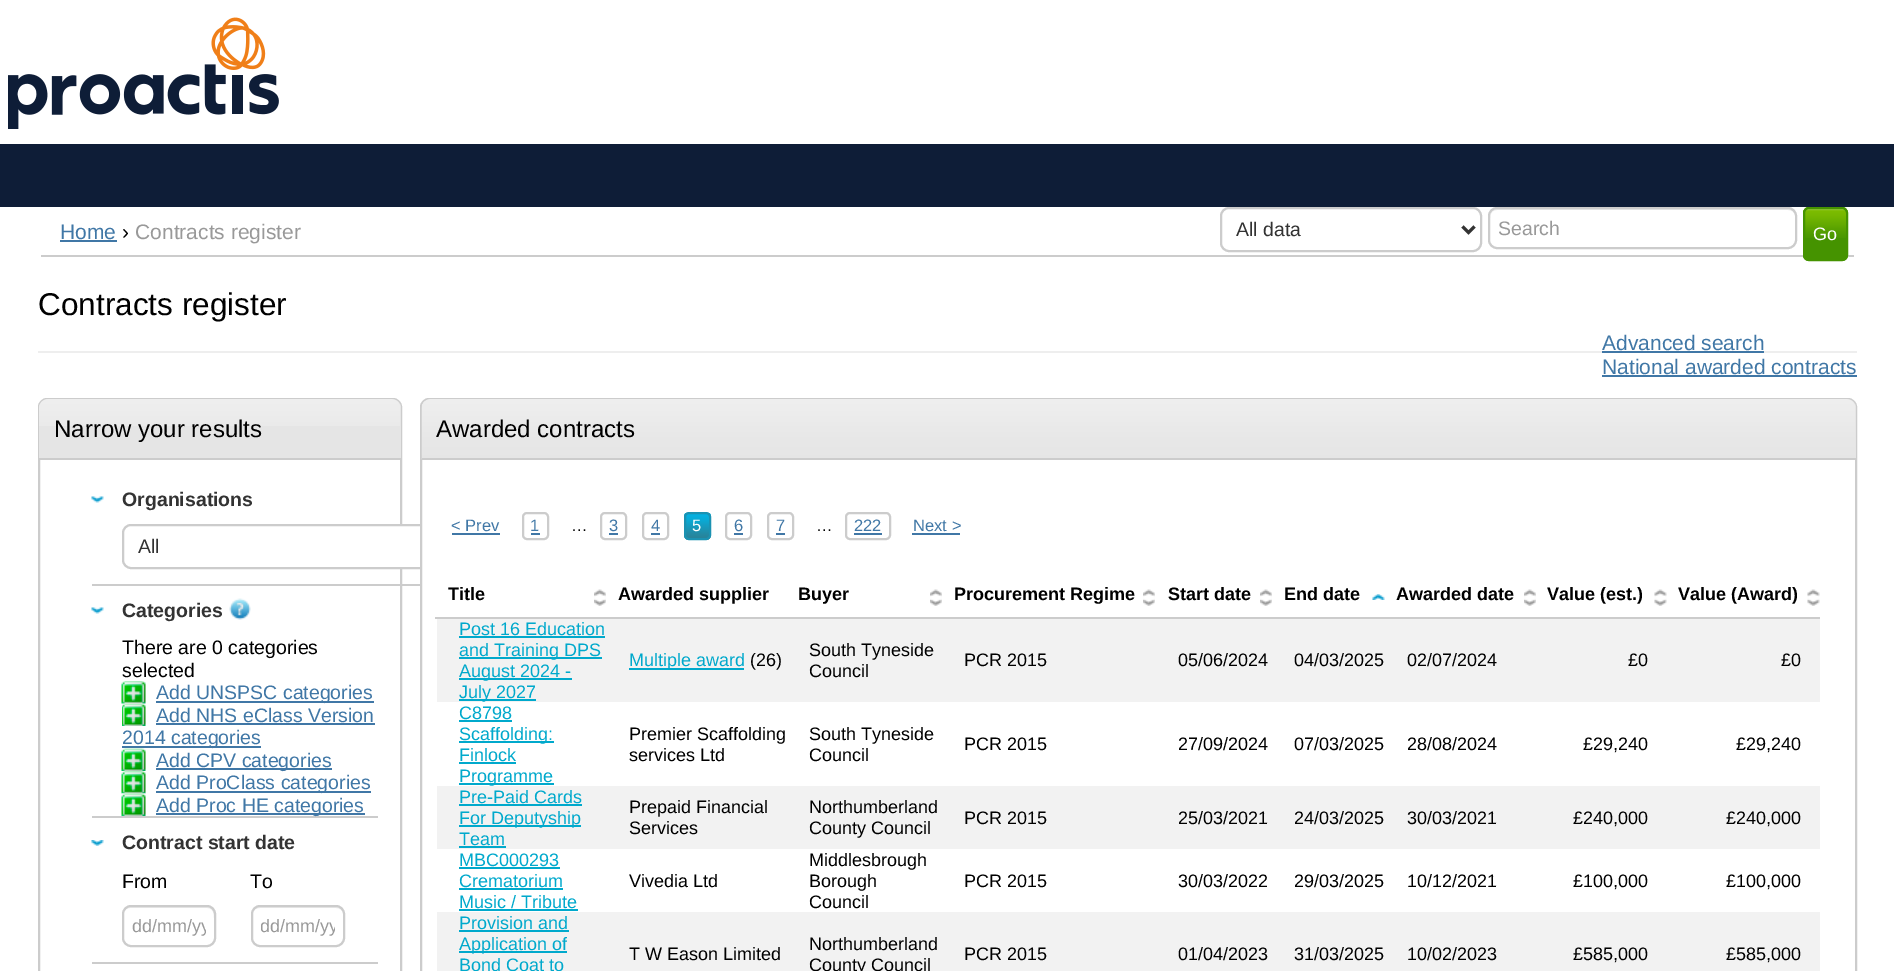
%!PS
<< /PageSize [1894 971] >> setpagedevice
/rgb { 3 { 255 div 3 1 roll } repeat setrgbcolor } def
/font { [ exch dup neg 0 0 3 -1 roll 0 0 ] selectfont } def
/roundrect { 5 dict begin { /r /h /w /y /x } { exch def } forall
  x r add y moveto x w add y 2 copy h add r arct x w add y h add x 1 index r arct
  x y h add x y r arct x y 2 copy exch w add exch r arct closepath end } def
/picture { 5 dict begin { /h /w /y /x /name } { exch def } forall
  gsave x y translate w h scale
  w h 8 [w 0 0 h 0 0] name (r) file false 3 colorimage grestore end } def
0 971 translate 1 -1 scale
4 setmiterlimit
255 255 255 rgb
0 0 1894 971 rectfill
(img/1.rgb) 8 17 271 112 picture
[
  [0 144 1894 63 14 29 55]
  [41 255 1813 2 204 204 204]
  [60 240 57 2 64 119 166]
] { aload pop rgb rectfill } forall
204 204 204 rgb
2 setlinewidth
1221 208 260 43 8 roundrect stroke
51 51 51 rgb
3 setlinewidth
1462.5 226.5 moveto 1468.5 232.5 lineto 1474.5 226.5 lineto stroke
236 236 236 rgb
1497 210 moveto 1788 210 lineto 1792 210 1796 213 1796 218 curveto 1796 213 1793 209 1788 209 curveto 1496 209 lineto 1492 210 1490 214 1490 218 curveto 1490 213 1493 210 1497 210 curveto closepath fill
204 204 204 rgb
2 setlinewidth
1489 208 307 40 8 roundrect stroke
69 147 0 rgb
1803 207 45 54 6 roundrect fill
(img/2.rgb) 1803 208 45 30 picture
1804 208 43 52 5 roundrect stroke
238 238 238 rgb
38 351 1819 2 rectfill
204 204 204 rgb
39 399 362 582 8 roundrect stroke
229 229 229 rgb
48 399 moveto 392 399 lineto 397 399 401 403 401 408 curveto 401 459 lineto 39 459 lineto 39 408 lineto 39 403 43 399 48 399 curveto closepath fill
(img/3.rgb) 39 399 361 27 picture
204 204 204 rgb
39 458 362 2 rectfill
92 584 328 2 rectfill
(img/4.rgb) 91 496 13 7 picture
255 255 255 rgb
123 525 328 43 8 roundrect gsave fill grestore
204 204 204 rgb
stroke
92 816 286 2 rectfill
(img/4.rgb) 91 607 13 7 picture
(img/5.rgb) 229 598 22 22 picture
(img/6.rgb) 121 681 25 23 picture
64 119 166 rgb
156 701 218 2 rectfill
(img/7.rgb) 122 704 24 22 picture
[
  [156 723 219 2 64 119 166]
  [122 746 139 2 64 119 166]
  [156 768 176 2 64 119 166]
] { aload pop rgb rectfill } forall
(img/6.rgb) 121 771 25 23 picture
156 791 215 2 rectfill
(img/9.rgb) 121 793 25 23 picture
156 813 209 2 rectfill
204 204 204 rgb
92 962 286 2 rectfill
(img/10.rgb) 91 840 13 6 picture
236 236 236 rgb
130 908 moveto 207 908 lineto 215 908 214 917 214 923 curveto 214 942 lineto 214 940 215 939 215 937 curveto 215 914 lineto 215 910 211 906 207 906 curveto 131 906 lineto 127 906 123 910 123 914 curveto 123 915 lineto 123 911 126 908 130 908 curveto closepath fill
204 204 204 rgb
123 906 92 40 8 roundrect stroke
236 236 236 rgb
260 908 moveto 336 908 lineto 340 908 344 911 344 915 curveto 344 903 331 906 323 906 curveto 273 906 lineto 265 906 252 903 252 915 curveto 252 911 255 908 260 908 curveto closepath fill
204 204 204 rgb
252 906 92 40 8 roundrect stroke
64 119 166 rgb
1602 351 162 2 rectfill
1602 375 255 2 rectfill
255 255 255 rgb
421 399 1435 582 8 roundrect gsave fill grestore
204 204 204 rgb
stroke
229 229 229 rgb
431 399 moveto 1847 399 lineto 1852 399 1856 403 1856 408 curveto 1856 459 lineto 422 459 lineto 422 408 lineto 422 403 426 399 431 399 curveto closepath fill
(img/11.rgb) 421 399 1434 60 picture
204 204 204 rgb
422 458 1434 2 rectfill
64 119 166 rgb
452 533 48 2 rectfill
204 204 204 rgb
523 513 25 26 4 roundrect stroke
64 119 166 rgb
531 533 9 2 rectfill
204 204 204 rgb
601 513 25 26 4 roundrect stroke
64 119 166 rgb
609 533 9 2 rectfill
204 204 204 rgb
643 513 25 26 4 roundrect stroke
64 119 166 rgb
651 533 9 2 rectfill
(img/12.rgb) 684 513 27 27 picture
27 146 178 rgb
685 513 25 26 4 roundrect stroke
204 204 204 rgb
726 513 25 26 4 roundrect stroke
64 119 166 rgb
734 533 9 2 rectfill
204 204 204 rgb
768 513 25 26 4 roundrect stroke
64 119 166 rgb
776 533 9 2 rectfill
204 204 204 rgb
846 513 44 26 4 roundrect stroke
64 119 166 rgb
854 533 28 2 rectfill
912 533 48 2 rectfill
(img/13.rgb) 594 589 12 17 picture
(img/14.rgb) 930 589 12 17 picture
(img/13.rgb) 1143 589 12 17 picture
(img/13.rgb) 1260 589 12 17 picture
(img/15.rgb) 1372 594 13 6 picture
(img/14.rgb) 1524 589 12 17 picture
(img/16.rgb) 1654 589 13 17 picture
(img/17.rgb) 1807 589 13 17 picture
[
  [435 617 1385 2 204 204 204]
  [437 619 1383 83 242 242 242]
  [459 636 146 2 0 169 204]
  [459 657 143 2 0 169 204]
  [459 678 113 2 0 169 204]
  [459 699 77 2 0 169 204]
  [629 668 115 2 0 169 204]
  [459 720 53 2 0 169 204]
  [459 741 95 2 0 169 204]
  [459 762 57 2 0 169 204]
  [459 783 95 2 0 169 204]
  [437 786 1383 63 242 242 242]
  [459 804 123 2 0 169 204]
  [459 825 122 2 0 169 204]
  [459 846 47 2 0 169 204]
  [459 867 101 2 0 169 204]
  [459 888 104 2 0 169 204]
  [459 909 119 2 0 169 204]
  [437 912 1383 59 242 242 242]
  [459 930 110 2 0 169 204]
  [459 951 108 2 0 169 204]
] { aload pop rgb rectfill } forall
/LiberationSans-Regular 21 font
64 119 166 rgb
60 239 moveto (Home) show
0 0 0 rgb
122 239 moveto (›) show
153 153 153 rgb
135 239 moveto (Contracts register) show
/LiberationSans-Regular 19.5 font
51 51 51 rgb
1236 236 moveto (All data) show
153 153 153 rgb
1498 235 moveto (Search) show
/LiberationSans-Regular 18 font
255 255 255 rgb
1813 240 moveto (Go) show
/LiberationSans-Regular 31.5 font
0 0 0 rgb
38 315 moveto (Contracts register) show
/LiberationSans-Regular 24 font
54 437 moveto (Narrow your results) show
/LiberationSans-Bold 19.5 font
51 51 51 rgb
122 506 moveto (Organisations) show
/LiberationSans-Regular 19.5 font
138 553 moveto (All) show
/LiberationSans-Bold 19.5 font
122 617 moveto (Categories) show
/LiberationSans-Regular 19.5 font
0 0 0 rgb
122 654 moveto (There are 0 categories) show
122 677 moveto (selected) show
64 119 166 rgb
[
  [(Add UNSPSC categories) 156 699]
  [(Add NHS eClass Version) 156 722]
  [(2014 categories) 122 744]
] { aload pop moveto show } forall
(img/8.rgb) 121 748 25 23 picture
[
  [(Add CPV categories) 156 767]
  [(Add ProClass categories) 156 789]
  [(Add Proc HE categories) 156 812]
] { aload pop moveto show } forall
/LiberationSans-Bold 19.5 font
51 51 51 rgb
122 849 moveto (Contract start date) show
/LiberationSans-Regular 19.5 font
0 0 0 rgb
122 888 moveto (From) show
gsave
132 915 74 21 rectclip
/LiberationSans-Regular 18 font
153 153 153 rgb
132 932 moveto (dd/mm/yy) show
grestore
250 888 moveto (To) show
gsave
261 915 74 21 rectclip
/LiberationSans-Regular 18 font
153 153 153 rgb
260 932 moveto (dd/mm/yy) show
grestore
/LiberationSans-Regular 21 font
64 119 166 rgb
1602 350 moveto (Advanced search) show
1602 374 moveto (National awarded contracts) show
/LiberationSans-Regular 24 font
0 0 0 rgb
436 437 moveto (Awarded contracts) show
/LiberationSans-Regular 16.5 font
64 119 166 rgb
451 531 moveto (< Prev) show
530 531 moveto (1) show
0 0 0 rgb
571 531 moveto (…) show
64 119 166 rgb
609 531 moveto (3) show
651 531 moveto (4) show
255 255 255 rgb
692 531 moveto (5) show
64 119 166 rgb
734 531 moveto (6) show
776 531 moveto (7) show
0 0 0 rgb
816 531 moveto (…) show
64 119 166 rgb
854 531 moveto (222) show
913 531 moveto (Next >) show
/LiberationSans-Bold 18 font
0 0 0 rgb
[
  [(Title) 448 600]
  [(Awarded supplier) 618 600]
  [(Buyer) 798 600]
  [(Procurement Regime) 954 600]
  [(Start date) 1168 600]
  [(End date) 1284 600]
  [(Awarded date) 1396 600]
  [(Value \(est.\)) 1547 600]
  [(Value \(Award\)) 1678 600]
] { aload pop moveto show } forall
/LiberationSans-Regular 18 font
0 169 204 rgb
[
  [(Post 16 Education) 459 635]
  [(and Training DPS) 459 656]
  [(August 2024 -) 459 677]
  [(July 2027) 459 698]
  [(Multiple award) 629 666]
] { aload pop moveto show } forall
0 0 0 rgb
[
  [(\(26\)) 750 666]
  [(South Tyneside) 809 656]
  [(Council) 809 677]
  [(PCR 2015) 964 666]
  [(05/06/2024) 1178 666]
  [(04/03/2025) 1294 666]
  [(02/07/2024) 1407 666]
  [(£0) 1628 666]
  [(£0) 1781 666]
] { aload pop moveto show } forall
0 169 204 rgb
[
  [(C8798) 459 719]
  [(Scaffolding:) 459 740]
  [(Finlock) 459 761]
  [(Programme) 459 782]
] { aload pop moveto show } forall
0 0 0 rgb
[
  [(Premier Scaffolding) 629 740]
  [(services Ltd) 629 761]
  [(South Tyneside) 809 740]
  [(Council) 809 761]
  [(PCR 2015) 964 750]
  [(27/09/2024) 1178 750]
  [(07/03/2025) 1294 750]
  [(28/08/2024) 1407 750]
  [(£29,240) 1583 750]
  [(£29,240) 1736 750]
] { aload pop moveto show } forall
0 169 204 rgb
[
  [(Pre-Paid Cards) 459 803]
  [(For Deputyship) 459 824]
  [(Team) 459 845]
] { aload pop moveto show } forall
0 0 0 rgb
[
  [(Prepaid Financial) 629 813]
  [(Services) 629 834]
  [(Northumberland) 809 813]
  [(County Council) 809 834]
  [(PCR 2015) 964 824]
  [(25/03/2021) 1178 824]
  [(24/03/2025) 1294 824]
  [(30/03/2021) 1407 824]
  [(£240,000) 1573 824]
  [(£240,000) 1726 824]
] { aload pop moveto show } forall
0 169 204 rgb
[
  [(MBC000293) 459 866]
  [(Crematorium) 459 887]
  [(Music / Tribute) 459 908]
] { aload pop moveto show } forall
0 0 0 rgb
[
  [(Vivedia Ltd) 629 887]
  [(Middlesbrough) 809 866]
  [(Borough) 809 887]
  [(Council) 809 908]
  [(PCR 2015) 964 887]
  [(30/03/2022) 1178 887]
  [(29/03/2025) 1294 887]
  [(10/12/2021) 1407 887]
  [(£100,000) 1573 887]
  [(£100,000) 1726 887]
] { aload pop moveto show } forall
0 169 204 rgb
[
  [(Provision and) 459 929]
  [(Application of) 459 950]
  [(Bond Coat to) 459 971]
] { aload pop moveto show } forall
0 0 0 rgb
[
  [(T W Eason Limited) 629 960]
  [(Northumberland) 809 950]
  [(County Council) 809 971]
  [(PCR 2015) 964 960]
  [(01/04/2023) 1178 960]
  [(31/03/2025) 1294 960]
  [(10/02/2023) 1407 960]
  [(£585,000) 1573 960]
  [(£585,000) 1726 960]
] { aload pop moveto show } forall
showpage
